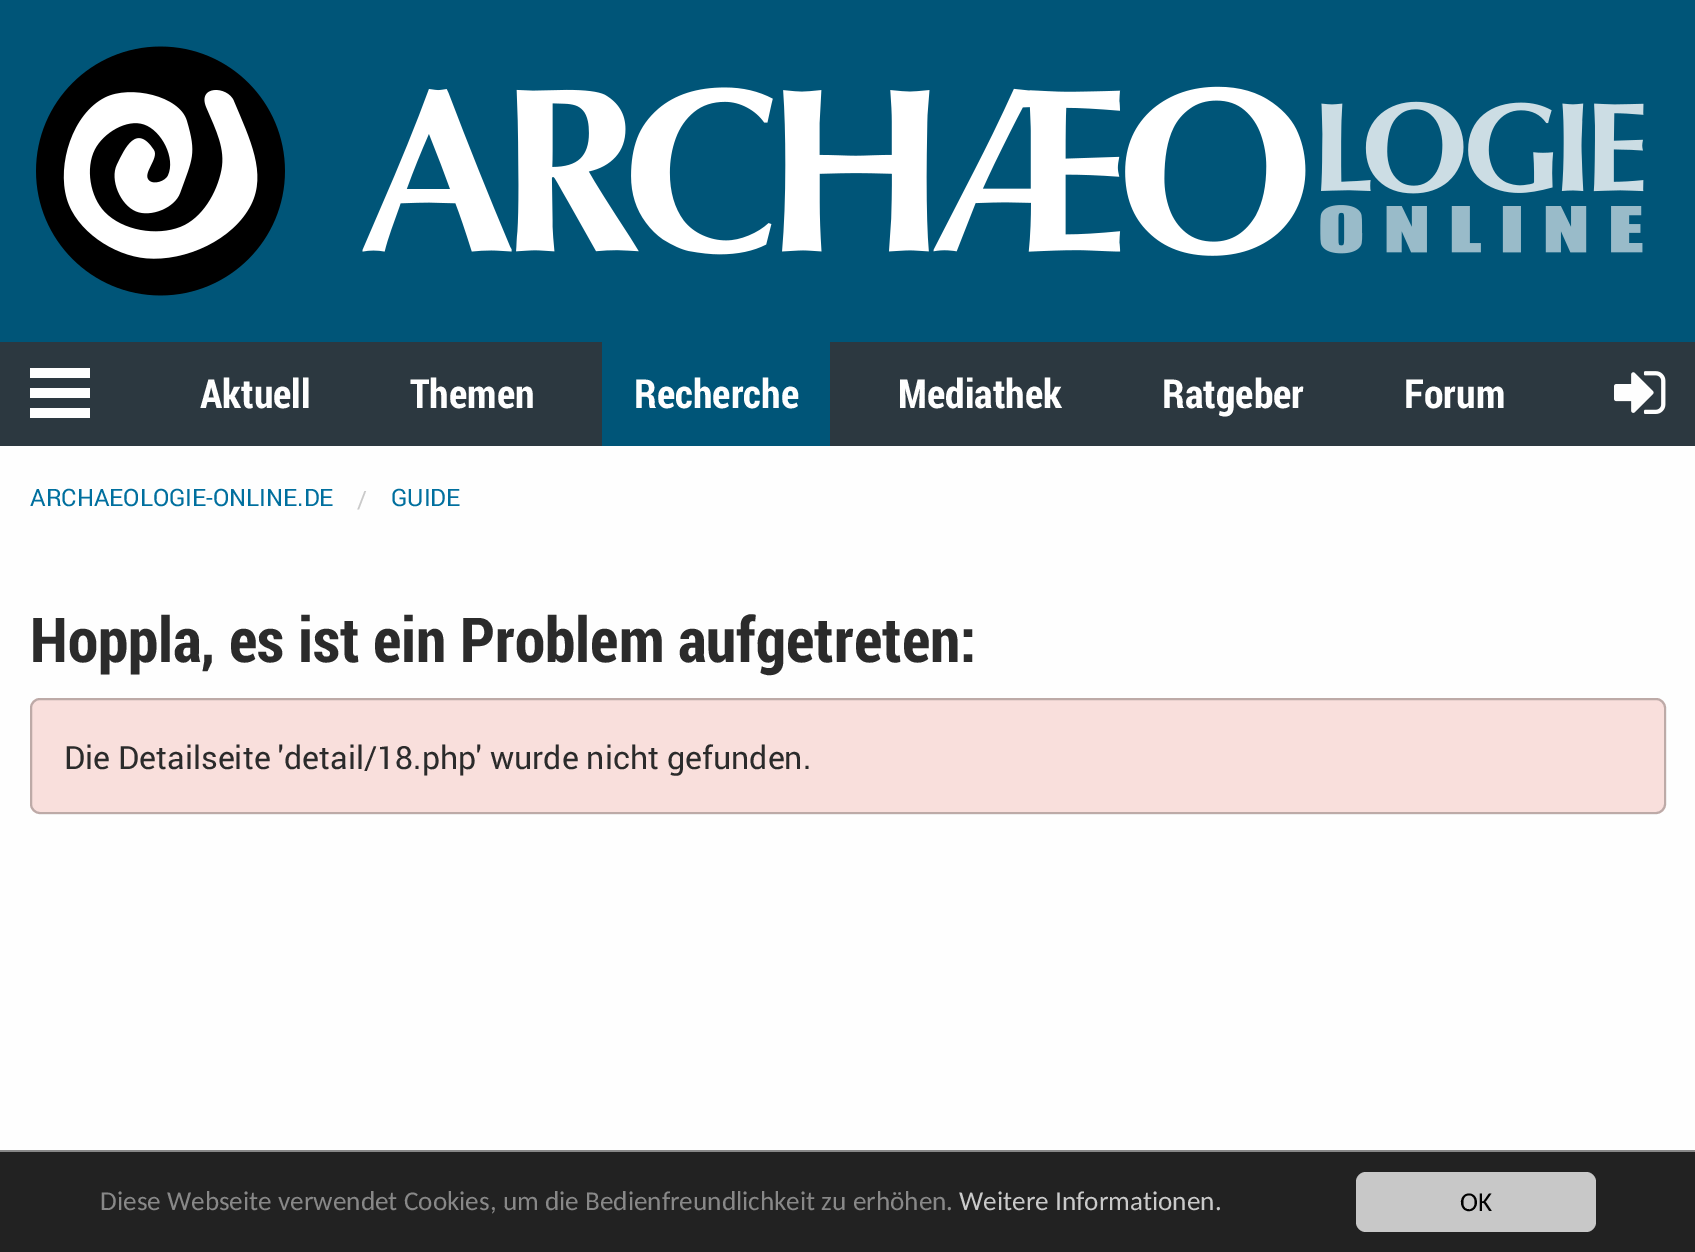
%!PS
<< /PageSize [1695 1252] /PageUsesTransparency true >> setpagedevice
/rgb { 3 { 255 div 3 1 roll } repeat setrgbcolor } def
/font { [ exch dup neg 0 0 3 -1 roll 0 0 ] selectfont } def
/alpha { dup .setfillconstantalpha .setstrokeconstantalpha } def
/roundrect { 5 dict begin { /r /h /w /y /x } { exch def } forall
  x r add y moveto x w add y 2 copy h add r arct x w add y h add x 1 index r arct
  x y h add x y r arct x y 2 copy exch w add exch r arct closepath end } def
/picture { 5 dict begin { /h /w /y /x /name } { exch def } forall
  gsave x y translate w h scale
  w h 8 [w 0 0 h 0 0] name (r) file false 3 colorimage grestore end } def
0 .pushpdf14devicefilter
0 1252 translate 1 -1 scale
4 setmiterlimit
44 56 64 rgb
0 0 1695 1252 rectfill
0 85 120 rgb
0 0 1695 342 rectfill
(img/1.rgb) 36 46 1608 250 picture
[
  [30 408 60 10 254 254 254]
  [30 388 60 10 254 254 254]
  [30 368 60 10 254 254 254]
  [602 342 228 104 0 85 120]
] { aload pop rgb rectfill } forall
(img/2.rgb) 1614 371 52 43 picture
254 254 254 rgb
0 446 1695 704 rectfill
249 223 220 rgb
30 698 1636 116 10 roundrect fill
0.25 alpha
10 10 10 rgb
2 setlinewidth
31 699 1634 114 9 roundrect stroke
1 alpha
34 34 34 rgb
0 1152 1695 100 rectfill
136 136 136 rgb
0 1150 1695 2 rectfill
200 200 200 rgb
1356 1172 240 60 10 roundrect fill
/RobotoCondensed-Bold 40 font
254 254 254 rgb
[
  [(Aktuell) 200 408]
  [(Themen) 410 408]
  [(Recherche) 634 408]
  [(Mediathek) 898 408]
  [(Ratgeber) 1162 408]
  [(Forum) 1404 408]
] { aload pop moveto show } forall
/Roboto-Regular 24 font
0 111 158 rgb
30 506 moveto (ARCHAEOLOGIE-ONLINE.DE) show
202 202 202 rgb
357 508 moveto (/) show
0 111 158 rgb
391 506 moveto (GUIDE) show
/RobotoCondensed-Bold 62 font
43 43 43 rgb
30 662 moveto (Hoppla, es ist ein Problem aufgetreten:) show
/Roboto-Regular 32 font
64 769 moveto (Die Detailseite 'detail/18.php' wurde nicht gefunden.) show
/Carlito-Regular 27.2 font
136 136 136 rgb
100 1210 moveto (Diese Webseite verwendet Cookies, um die Bedienfreundlichkeit zu erhöhen.) show
202 202 202 rgb
959 1210 moveto (Weitere Informationen.) show
0 0 0 rgb
1460 1211 moveto (OK) show
.poppdf14devicefilter showpage
